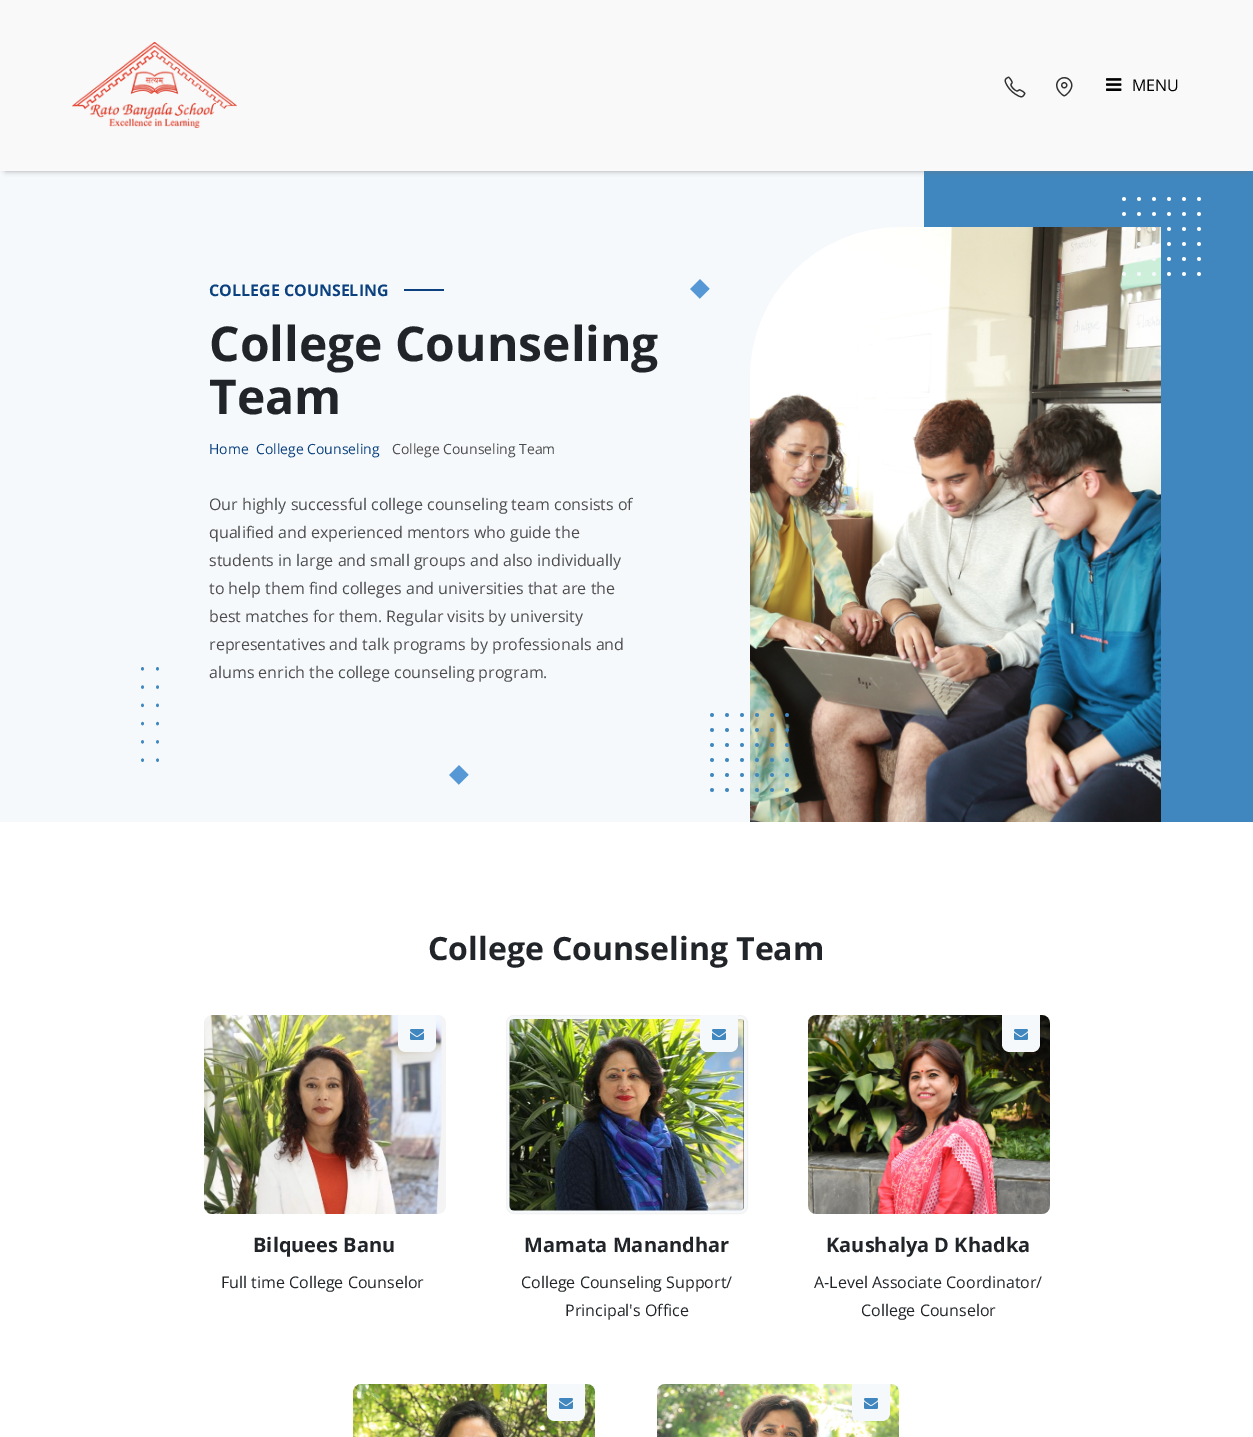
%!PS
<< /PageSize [1253 1437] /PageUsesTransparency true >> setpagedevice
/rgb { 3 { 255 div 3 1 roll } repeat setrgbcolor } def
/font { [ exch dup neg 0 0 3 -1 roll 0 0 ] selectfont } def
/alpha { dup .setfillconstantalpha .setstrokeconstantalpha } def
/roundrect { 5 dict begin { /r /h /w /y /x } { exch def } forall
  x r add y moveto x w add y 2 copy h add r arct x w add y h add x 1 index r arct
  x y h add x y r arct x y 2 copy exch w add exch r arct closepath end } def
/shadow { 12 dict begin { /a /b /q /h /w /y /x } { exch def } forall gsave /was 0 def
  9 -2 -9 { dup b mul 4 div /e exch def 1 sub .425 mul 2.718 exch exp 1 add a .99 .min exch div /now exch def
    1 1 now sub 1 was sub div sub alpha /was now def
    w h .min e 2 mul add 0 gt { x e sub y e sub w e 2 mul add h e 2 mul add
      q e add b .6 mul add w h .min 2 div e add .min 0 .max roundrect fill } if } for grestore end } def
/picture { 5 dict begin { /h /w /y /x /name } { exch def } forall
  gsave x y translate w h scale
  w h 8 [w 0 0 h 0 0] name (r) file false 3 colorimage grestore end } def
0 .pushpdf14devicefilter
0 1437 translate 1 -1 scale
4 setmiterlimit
246 249 252 rgb
0 0 1253 1437 rectfill
63 135 190 rgb
924 171 329 651 rectfill
119 119 119 rgb
6 11 1241 159 0 3 1 shadow
249 249 249 rgb
0 0 1253 171 rectfill
(img/1.rgb) 72 42 165 86 picture
(img/2.rgb) 1004 76 22 22 picture
(img/3.rgb) 1056 77 17 20 picture
(img/4.rgb) 1106 78 16 13 picture
11 65 126 rgb
404 289 40 2 rectfill
(img/5.rgb) 690 279 20 20 picture
(img/5.rgb) 449 765 20 20 picture
(img/7.rgb) 750 227 411 595 picture
(img/6.rgb) 710 713 79 79 picture
(img/8.rgb) 1122 197 79 79 picture
(img/9.rgb) 141 667 18 95 picture
255 255 255 rgb
0 822 1253 615 rectfill
(img/10.rgb) 204 1015 242 199 picture
246 249 252 rgb
398 1015 moveto 436 1015 lineto 436 1044 lineto 436 1048.5 432.5 1052 428 1052 curveto 406 1052 lineto 401.5 1052 398 1048.5 398 1044 curveto closepath fill
(img/11.rgb) 410 1029 14 11 picture
506.5 1015.5 241 198 7.5 roundrect gsave fill grestore
242 242 242 rgb
stroke
(img/12.rgb) 509 1019 235 192 picture
246 249 252 rgb
700 1015 moveto 738 1015 lineto 738 1044 lineto 738 1048.5 734.5 1052 730 1052 curveto 708 1052 lineto 703.5 1052 700 1048.5 700 1044 curveto closepath fill
(img/11.rgb) 712 1029 14 11 picture
(img/13.rgb) 808 1015 242 199 picture
1002 1015 moveto 1040 1015 lineto 1040 1044 lineto 1040 1048.5 1036.5 1052 1032 1052 curveto 1010 1052 lineto 1005.5 1052 1002 1048.5 1002 1044 curveto closepath fill
(img/11.rgb) 1014 1029 14 11 picture
(img/14.rgb) 353 1384 242 53 picture
547 1384 moveto 585 1384 lineto 585 1413 lineto 585 1417.5 581.5 1421 577 1421 curveto 555 1421 lineto 550.5 1421 547 1417.5 547 1413 curveto closepath fill
(img/11.rgb) 559 1398 14 11 picture
(img/15.rgb) 657 1384 242 53 picture
852 1384 moveto 890 1384 lineto 890 1413 lineto 890 1417.5 886.5 1421 882 1421 curveto 860 1421 lineto 855.5 1421 852 1417.5 852 1413 curveto closepath fill
(img/11.rgb) 864 1398 14 11 picture
/OpenSans-Regular 16 font
0 0 0 rgb
1132 91 moveto (MENU) show
/OpenSans-Bold 16 font
11 65 126 rgb
209 296 moveto (COLLEGE COUNSELING) show
/OpenSans-Bold 48 font
33 37 41 rgb
209 361 moveto (College Counseling) show
209 414 moveto (Team) show
/OpenSans-Regular 14 font
11 65 126 rgb
209 454 moveto (Home) show
256 454 moveto (College Counseling) show
77 77 77 rgb
392 454 moveto (College Counseling Team) show
/OpenSans-Regular 16 font
[
  [(Our highly successful college counseling team consists of) 209 510]
  [(qualified and experienced mentors who guide the) 209 538]
  [(students in large and small groups and also individually) 209 566]
  [(to help them find colleges and universities that are the) 209 594]
  [(best matches for them. Regular visits by university) 209 622]
  [(representatives and talk programs by professionals and) 209 650]
  [(alums enrich the college counseling program.) 209 678]
] { aload pop moveto show } forall
/OpenSans-Bold 32 font
33 37 41 rgb
428 960 moveto (College Counseling Team) show
/OpenSans-Bold 20 font
253 1252 moveto (Bilquees Banu) show
/OpenSans-Regular 16 font
221 1288 moveto (Full time College Counselor) show
/OpenSans-Bold 20 font
524 1252 moveto (Mamata Manandhar) show
/OpenSans-Regular 16 font
521 1288 moveto (College Counseling Support/) show
565 1316 moveto (Principal's Office) show
/OpenSans-Bold 20 font
826 1252 moveto (Kaushalya D Khadka) show
/OpenSans-Regular 16 font
814 1288 moveto (A-Level Associate Coordinator/) show
861 1316 moveto (College Counselor) show
.poppdf14devicefilter showpage
